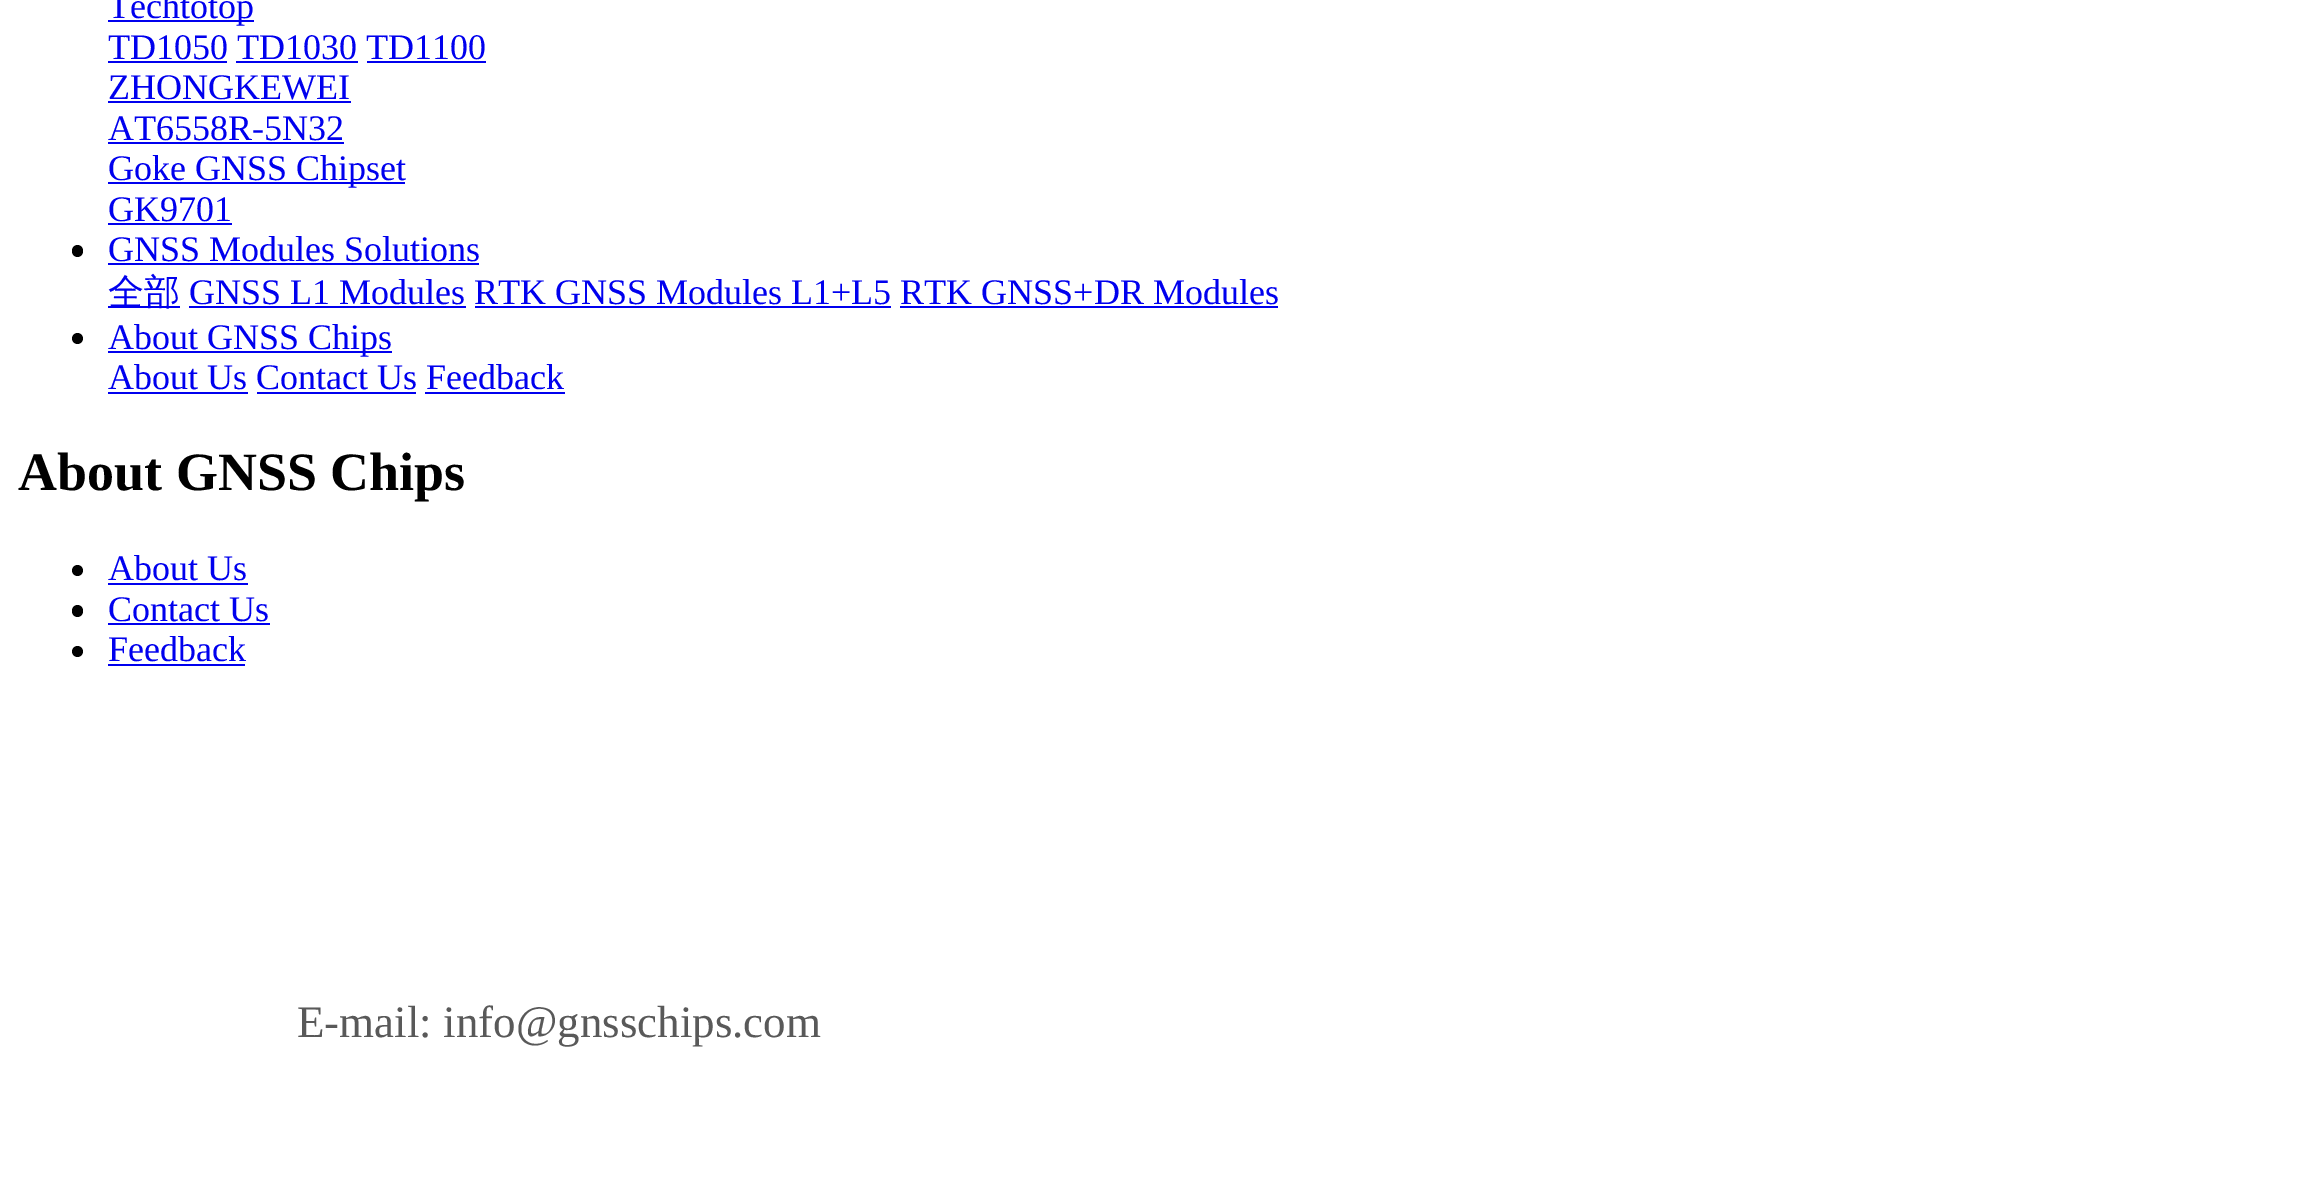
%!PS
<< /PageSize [2300 1179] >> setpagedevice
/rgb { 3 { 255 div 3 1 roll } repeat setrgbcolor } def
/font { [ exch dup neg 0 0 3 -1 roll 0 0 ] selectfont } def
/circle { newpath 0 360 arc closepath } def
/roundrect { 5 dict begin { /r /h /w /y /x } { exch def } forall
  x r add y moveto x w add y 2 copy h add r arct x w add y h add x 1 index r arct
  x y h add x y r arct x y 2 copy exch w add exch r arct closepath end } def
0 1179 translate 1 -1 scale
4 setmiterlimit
255 255 255 rgb
0 0 2300 1179 rectfill
[
  [108 20 146 2 0 0 238]
  [108 61 119 2 0 0 238]
  [236 61 122 2 0 0 238]
  [367 61 119 2 0 0 238]
  [108 101 243 2 0 0 238]
  [108 142 236 2 0 0 238]
  [108 182 297 2 0 0 238]
  [108 223 124 2 0 0 238]
] { aload pop rgb rectfill } forall
0 0 0 rgb
72 245 11 12 5.5 roundrect fill
[
  [108 263 371 2 0 0 238]
  [108 306 72 2 0 0 238]
  [189 306 277 2 0 0 238]
  [475 306 416 2 0 0 238]
  [900 306 378 2 0 0 238]
] { aload pop rgb rectfill } forall
0 0 0 rgb
77.5 338.5 5.5 circle fill
[
  [108 351 284 2 0 0 238]
  [108 392 140 2 0 0 238]
  [257 392 159 2 0 0 238]
  [425 392 140 2 0 0 238]
] { aload pop rgb rectfill } forall
0 0 0 rgb
77.5 570.5 5.5 circle fill
0 0 238 rgb
108 583 140 2 rectfill
0 0 0 rgb
72 605 11 12 5.5 roundrect fill
0 0 238 rgb
108 623 162 2 rectfill
0 0 0 rgb
77.5 651.5 5.5 circle fill
0 0 238 rgb
108 664 137 2 rectfill
/LiberationSerif-Regular 36 font
[
  [(Techtotop) 108 18]
  [(TD1050 TD1030 TD1100) 108 59]
  [(ZHONGKEWEI) 108 99]
  [(AT6558R-5N32) 108 140]
  [(Goke GNSS Chipset) 108 180]
  [(GK9701) 108 221]
  [(GNSS Modules Solutions) 108 261]
] { aload pop moveto show } forall
/WenQuanYiZenHei-Medium 36 font
108 304 moveto (全部) show
/LiberationSerif-Regular 36 font
[
  [(GNSS L1 Modules RTK GNSS Modules L1+L5 RTK GNSS+DR Modules) 189 304]
  [(About GNSS Chips) 108 349]
  [(About Us Contact Us Feedback) 108 389]
] { aload pop moveto show } forall
/LiberationSerif-Bold 54 font
0 0 0 rgb
18 490 moveto (About GNSS Chips) show
/LiberationSerif-Regular 36 font
0 0 238 rgb
[
  [(About Us) 108 580]
  [(Contact Us) 108 621]
  [(Feedback) 108 661]
] { aload pop moveto show } forall
/LiberationSerif-Regular 45 font
89 89 89 rgb
297 1037 moveto (E-mail: info@gnsschips.com) show
showpage
